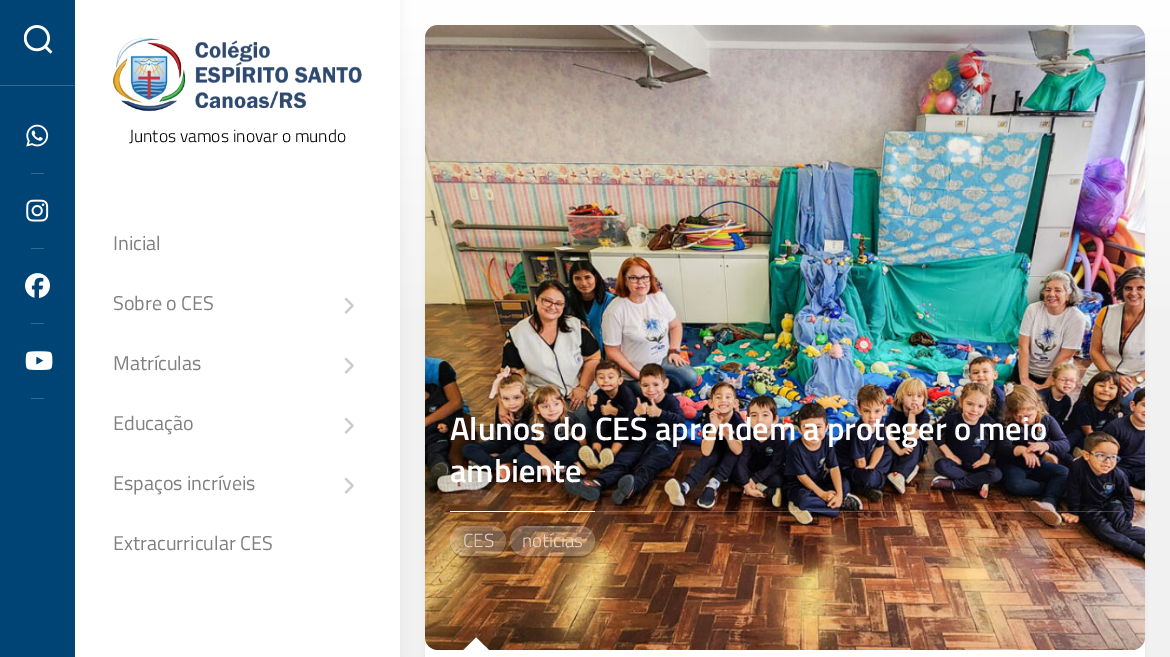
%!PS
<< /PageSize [1170 657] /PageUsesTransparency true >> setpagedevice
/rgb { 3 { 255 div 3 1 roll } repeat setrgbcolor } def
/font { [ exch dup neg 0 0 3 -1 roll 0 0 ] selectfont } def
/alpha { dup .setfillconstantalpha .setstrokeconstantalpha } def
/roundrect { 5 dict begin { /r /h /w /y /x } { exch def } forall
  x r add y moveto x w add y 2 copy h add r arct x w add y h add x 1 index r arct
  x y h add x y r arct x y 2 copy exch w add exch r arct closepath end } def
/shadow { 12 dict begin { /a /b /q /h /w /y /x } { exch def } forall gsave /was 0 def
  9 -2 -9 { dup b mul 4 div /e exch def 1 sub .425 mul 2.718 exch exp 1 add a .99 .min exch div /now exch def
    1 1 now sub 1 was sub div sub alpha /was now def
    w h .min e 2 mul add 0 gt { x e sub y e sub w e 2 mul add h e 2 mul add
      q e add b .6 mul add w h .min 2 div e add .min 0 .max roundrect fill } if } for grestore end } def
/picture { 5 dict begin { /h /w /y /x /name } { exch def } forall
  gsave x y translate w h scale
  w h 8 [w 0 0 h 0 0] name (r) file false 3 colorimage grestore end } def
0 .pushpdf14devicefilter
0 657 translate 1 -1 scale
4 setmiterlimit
241 241 241 rgb
0 0 1170 657 rectfill
gsave 400 0 moveto 1170 0 lineto 1170 308 lineto 400 308 lineto closepath clip newpath
<< /ShadingType 2 /ColorSpace /DeviceRGB /Coords [785 0 785 375] /Extend [true true] /Function << /FunctionType 2 /Domain [0 1] /C0 [1 1 1] /C1 [0.945 0.945 0.945] /N 1 >> >> shfill grestore
0 0 0 rgb
75 0 325 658 0 6 0.05 shadow
[
  [75 0 325 657 255 255 255]
  [0 0 75 657 0 68 118]
  [0 85 75 1 51 105 145]
] { aload pop rgb rectfill } forall
(img/1.rgb) 24 25 29 29 picture
(img/2.rgb) 26 124 23 23 picture
31 173 13 1 rectfill
(img/3.rgb) 26 199 23 23 picture
31 248 13 1 rectfill
(img/4.rgb) 25 273 25 25 picture
31 323 13 1 rectfill
(img/5.rgb) 25 351 28 19 picture
31 398 13 1 rectfill
(img/6.rgb) 113 37 249 75 picture
(img/7.rgb) 344 297 10 17 picture
(img/7.rgb) 344 357 10 17 picture
(img/7.rgb) 344 417 10 17 picture
(img/7.rgb) 344 477 10 17 picture
0 0 0 rgb
425 28 720 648 13 2 0.06 shadow
255 255 255 rgb
425 25 720 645 13 roundrect fill
(img/8.rgb) 425 25 720 625 picture
0.2 alpha
595 511 525 1 rectfill
1 alpha
450 511 145 1 rectfill
0.2 alpha
0 0 0 rgb
450 542 moveto 450 545 451 549 453 551 curveto 458 560 469 558 478 558 curveto 489 558 505 560 506 544 curveto 503 558 489 556 478 556 curveto 467 556 451 558 450 542 curveto closepath fill
255 255 255 rgb
450 526 56 30 15 roundrect fill
0.1 alpha
465 528 moveto 491 528 lineto 500 528 506 534 506 541 curveto 506 538 505 535 503 533 curveto 498 524 487 526 478 526 curveto 469 526 458 524 453 533 curveto 451 535 450 538 450 542 curveto 450 534 457 528 465 528 curveto closepath fill
0.2 alpha
0 0 0 rgb
510 542 moveto 510 549 515 556 522 558 curveto 583 558 lineto 590 556 595 549 595 542 curveto 595 550 588 556 580 556 curveto 525 556 lineto 517 556 510 550 510 542 curveto closepath fill
255 255 255 rgb
510 526 85 30 15 roundrect fill
0.1 alpha
525 528 moveto 580 528 lineto 588 528 595 534 595 542 curveto 595 534 590 528 583 526 curveto 522 526 lineto 515 528 510 534 510 542 curveto 510 534 517 528 525 528 curveto closepath fill
1 alpha
495 656 moveto 457.5 656 lineto 476 637.5 lineto closepath fill
/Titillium-Light 17.5 font
0 0 0 rgb
129 142 moveto (Juntos vamos inovar o mundo) show
/Titillium-Regular 20 font
128 128 128 rgb
[
  [(Inicial) 113 250]
  [(Sobre o CES) 113 310]
  [(Matrículas) 113 370]
  [(Educação) 113 430]
  [(Espaços incríveis) 113 490]
  [(Extracurricular CES) 113 550]
] { aload pop moveto show } forall
/Titillium-SemiBold 32.5 font
255 255 255 rgb
450 440 moveto (Alunos do CES aprendem a proteger o meio) show
450 482 moveto (ambiente) show
/Titillium-Light 19 font
222 212 203 rgb
463 547 moveto (CES) show
230 216 205 rgb
522 547 moveto (notícias) show
.poppdf14devicefilter showpage
